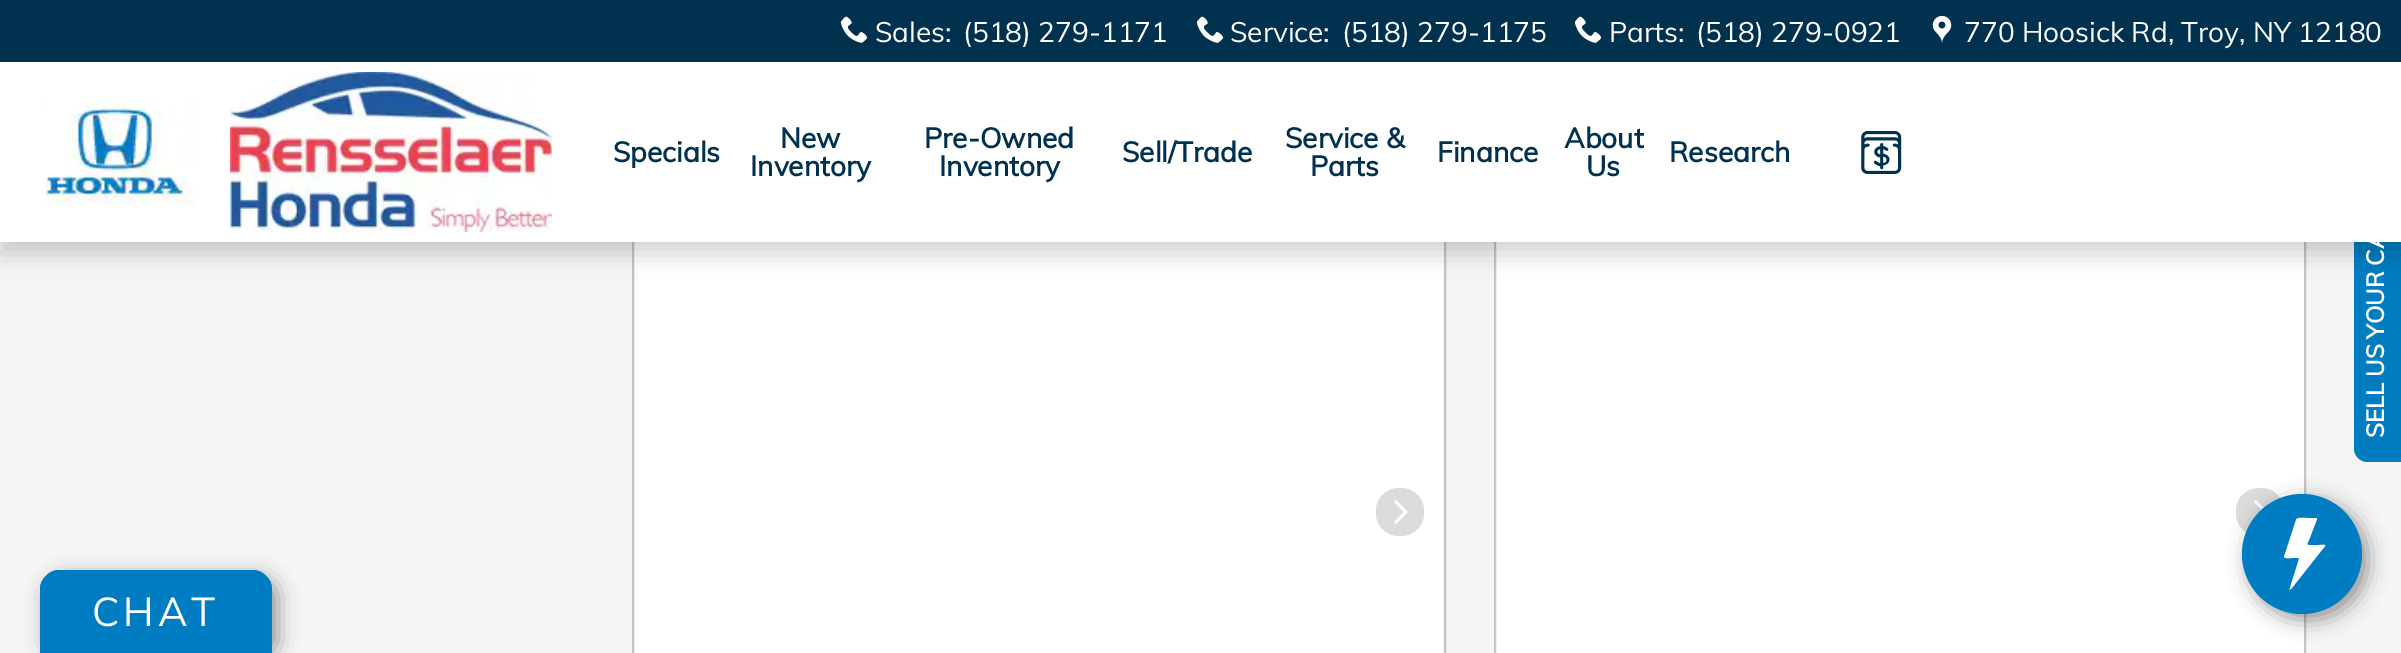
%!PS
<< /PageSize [2401 653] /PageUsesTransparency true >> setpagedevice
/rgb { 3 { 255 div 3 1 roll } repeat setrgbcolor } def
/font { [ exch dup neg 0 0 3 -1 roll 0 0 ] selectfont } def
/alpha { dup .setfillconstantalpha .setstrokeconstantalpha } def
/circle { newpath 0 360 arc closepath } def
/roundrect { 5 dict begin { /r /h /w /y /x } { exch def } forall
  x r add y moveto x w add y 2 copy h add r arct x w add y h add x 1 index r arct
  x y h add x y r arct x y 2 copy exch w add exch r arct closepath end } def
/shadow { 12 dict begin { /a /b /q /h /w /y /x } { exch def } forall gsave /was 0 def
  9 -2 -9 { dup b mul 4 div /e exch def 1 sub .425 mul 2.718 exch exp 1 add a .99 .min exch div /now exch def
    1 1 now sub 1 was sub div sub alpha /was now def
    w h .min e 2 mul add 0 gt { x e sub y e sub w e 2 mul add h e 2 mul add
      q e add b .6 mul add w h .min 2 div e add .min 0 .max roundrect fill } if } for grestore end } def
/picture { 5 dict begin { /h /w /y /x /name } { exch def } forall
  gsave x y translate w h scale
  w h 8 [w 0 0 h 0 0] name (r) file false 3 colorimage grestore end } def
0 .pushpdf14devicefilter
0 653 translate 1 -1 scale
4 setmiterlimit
245 245 245 rgb
0 0 2401 653 rectfill
255 255 255 rgb
634 242 810 411 rectfill
196 196 196 rgb
2 setlinewidth
633 207 812 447 rectstroke
255 255 255 rgb
1496 242 808 411 rectfill
196 196 196 rgb
1495 207 810 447 rectstroke
0 124 192 rgb
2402 462 moveto 2368 462 lineto 2360 462 2354 456 2354 448 curveto 2354 206 lineto 2354 198 2360 192 2368 192 curveto 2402 192 lineto closepath fill
0 0 0 rgb
0 12 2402 242 0 12 0.18 shadow
255 255 255 rgb
0 62 2401 180 rectfill
0 50 79 rgb
0 0 2401 62 rectfill
(img/1.rgb) 840 16 28 27 picture
(img/1.rgb) 1196 16 28 27 picture
(img/1.rgb) 1574 16 28 27 picture
(img/2.rgb) 1932 15 20 28 picture
(img/3.rgb) 44 100 152 107 picture
(img/4.rgb) 230 72 322 160 picture
(img/5.rgb) 1861 131 41 43 picture
183 183 183 rgb
1376 512 moveto 1376 544 1424 544 1424 512 curveto 1424 480 1376 480 1376 512 curveto closepath fill
0.5 alpha
255 255 255 rgb
1376 512 moveto 1376 544 1424 544 1424 512 curveto 1424 480 1376 480 1376 512 curveto closepath fill
1 alpha
1404 512 moveto 1394 502 lineto 1396 500 lineto 1408 512 lineto 1396 524 lineto 1394 522 lineto closepath fill
183 183 183 rgb
2236 512 moveto 2236 544 2284 544 2284 512 curveto 2284 480 2236 480 2236 512 curveto closepath fill
0.5 alpha
255 255 255 rgb
2236 512 moveto 2236 544 2284 544 2284 512 curveto 2284 480 2236 480 2236 512 curveto closepath fill
1 alpha
2264 512 moveto 2254 502 lineto 2256 500 lineto 2268 512 lineto 2256 524 lineto 2254 522 lineto closepath fill
0 0 0 rgb
46 576 232 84 20 10 0.4 shadow
0 124 195 rgb
60 570 moveto 252 570 lineto 263 570 272 579 272 590 curveto 272 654 lineto 40 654 lineto 40 590 lineto 40 579 49 570 60 570 curveto closepath fill
60 570 moveto 54 570 50 572 46 576 curveto 50 580 lineto 52 578 56 576 60 576 curveto 252 576 lineto 256 576 260 578 262 580 curveto 266 576 lineto 262 572 258 570 252 570 curveto closepath fill
272 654 moveto 272 590 lineto 272 584 270 580 266 576 curveto 262 580 lineto 264 582 266 586 266 590 curveto 266 648 lineto closepath fill
40 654 moveto 46 648 lineto 46 590 lineto 46 586 48 582 50 580 curveto 46 576 lineto 42 580 40 584 40 590 curveto closepath fill
0 0 0 rgb
2248 500 120 120 60 10 0.4 shadow
0 124 195 rgb
2302 554 60 circle fill
255 255 255 rgb
2296 520 moveto 2296 517 2305 518 2307 518 curveto 2317 518 lineto 2317 519 lineto 2309 540 lineto 2308 542 2306 545 2309 545 curveto 2319 545 lineto 2319 545 2327 544 2325 546 curveto 2291 589 lineto 2290 590 2289 590 2290 588 curveto 2299 559 lineto 2300 556 2286 560 2284 557 curveto closepath fill
/Muli-Regular 28 font
[
  [(Sales:) 875 42]
  [(\(518\) 279-1171) 963 42]
  [(Service:) 1230 42]
  [(\(518\) 279-1175) 1342 42]
  [(Parts:) 1609 42]
  [(\(518\) 279-0921) 1696 42]
  [(770 Hoosick Rd, Troy, NY 12180) 1964 42]
] { aload pop moveto show } forall
/Muli-Bold 28 font
0 50 79 rgb
[
  [(Specials) 613 162]
  [(New) 780 148]
  [(Inventory) 750 176]
  [(Pre-Owned) 924 148]
  [(Inventory) 939 176]
  [(Sell/Trade) 1122 162]
  [(Service &) 1285 148]
  [(Parts) 1310 176]
  [(Finance) 1437 162]
  [(About) 1564 148]
  [(Us) 1586 176]
  [(Research) 1669 162]
] { aload pop moveto show } forall
/Muli-Bold 24 font
255 255 255 rgb
gsave 2384 438 translate -90 rotate 0 0 moveto -0.5 0 32 (SELL US YOUR CAR) widthshow grestore
/Muli-Regular 40 font
92 626 moveto 4 0 (CHAT) ashow
.poppdf14devicefilter showpage
